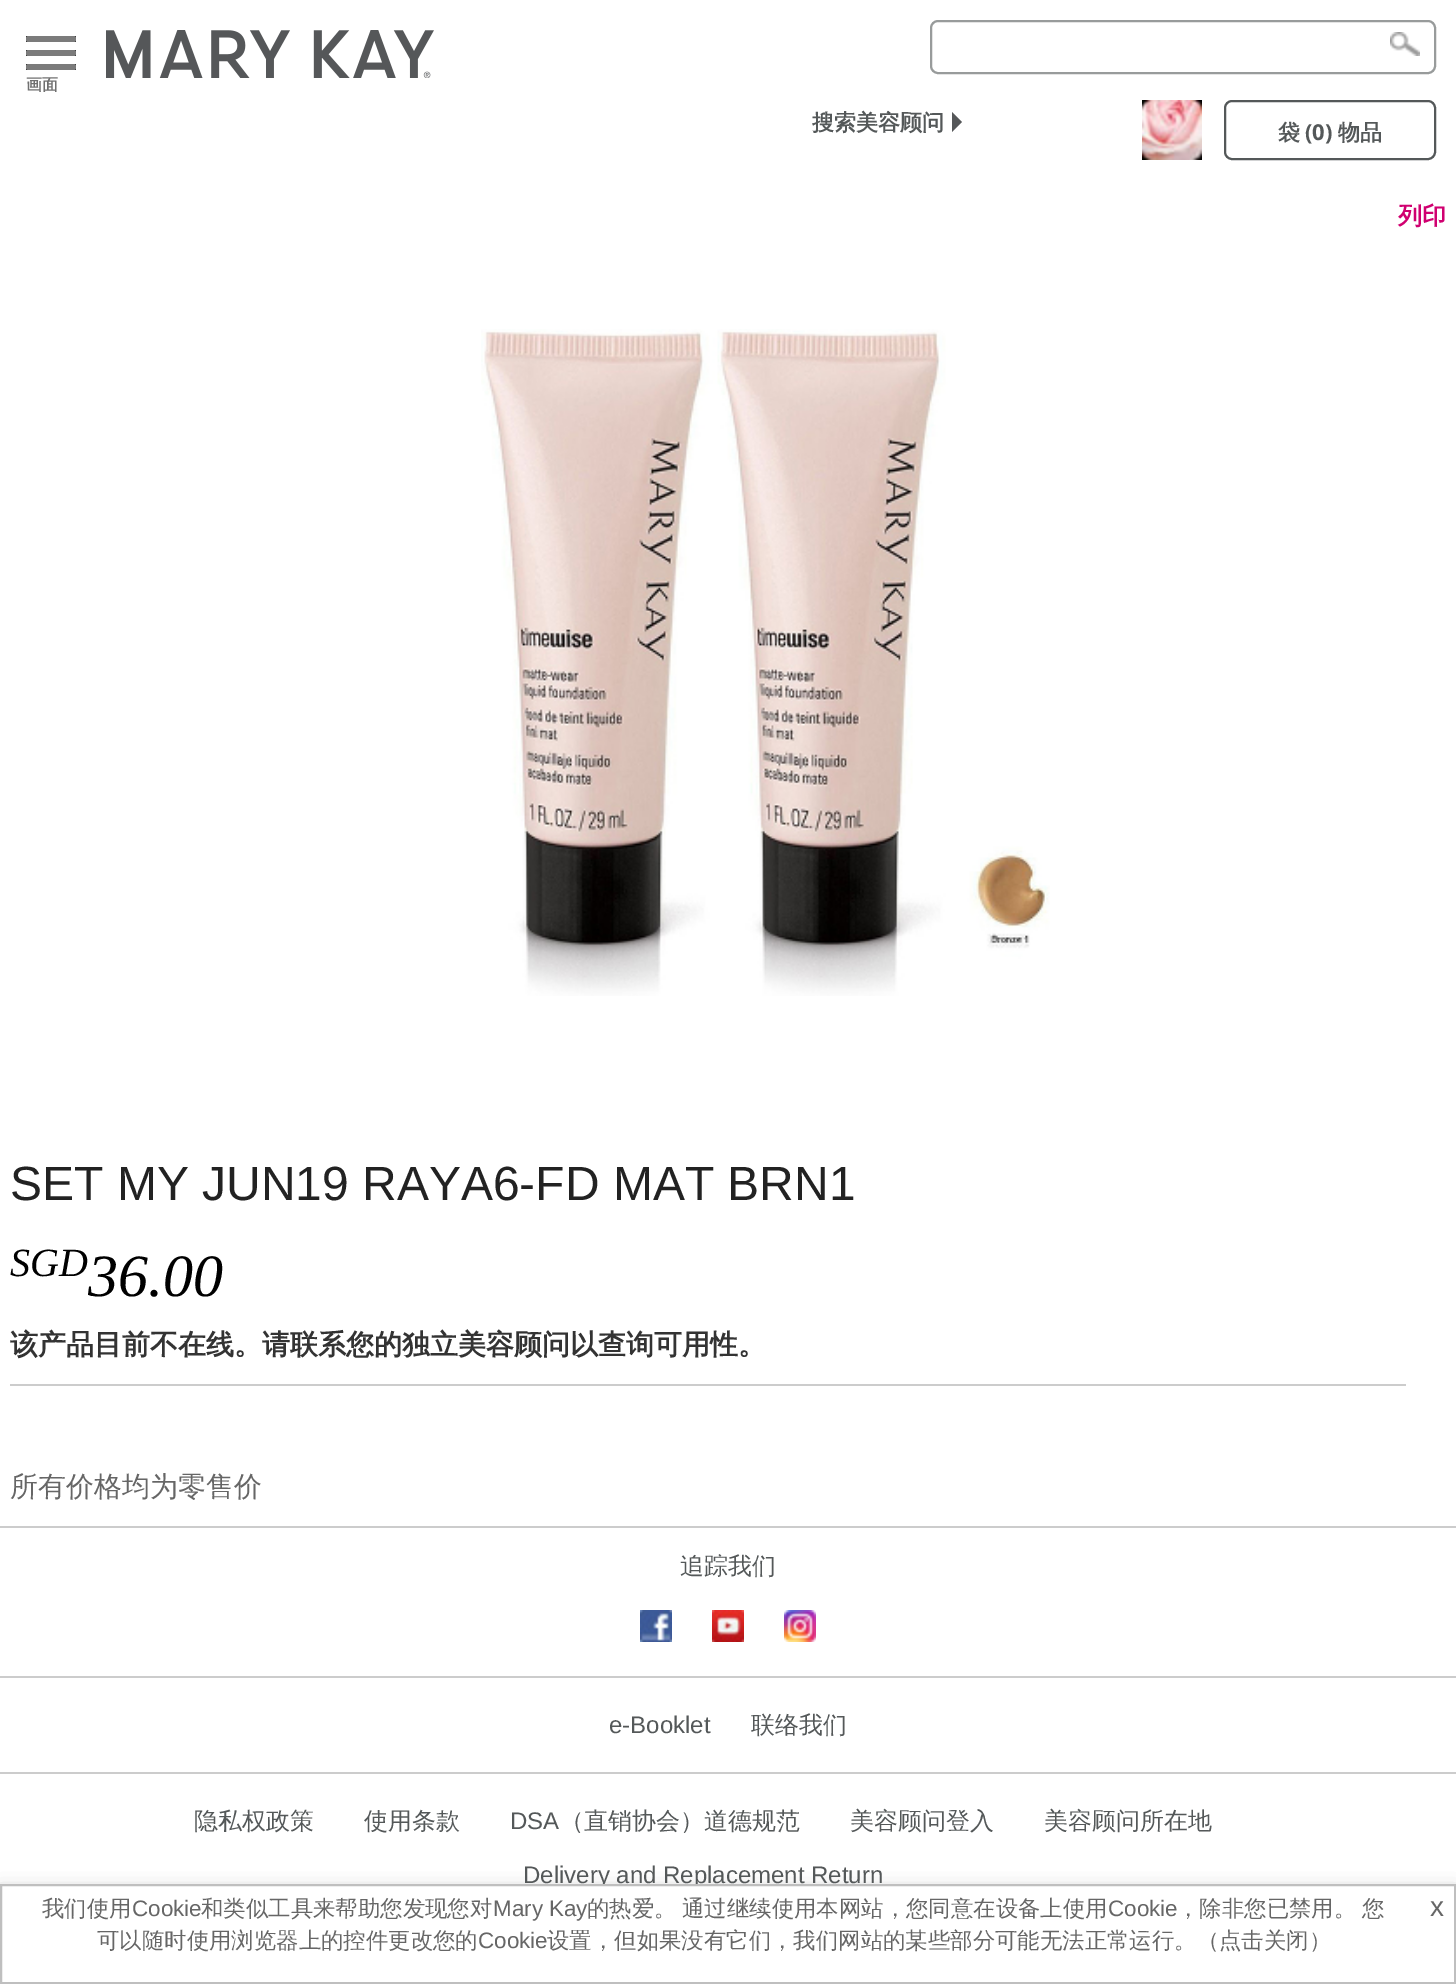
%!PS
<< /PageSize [1456 1984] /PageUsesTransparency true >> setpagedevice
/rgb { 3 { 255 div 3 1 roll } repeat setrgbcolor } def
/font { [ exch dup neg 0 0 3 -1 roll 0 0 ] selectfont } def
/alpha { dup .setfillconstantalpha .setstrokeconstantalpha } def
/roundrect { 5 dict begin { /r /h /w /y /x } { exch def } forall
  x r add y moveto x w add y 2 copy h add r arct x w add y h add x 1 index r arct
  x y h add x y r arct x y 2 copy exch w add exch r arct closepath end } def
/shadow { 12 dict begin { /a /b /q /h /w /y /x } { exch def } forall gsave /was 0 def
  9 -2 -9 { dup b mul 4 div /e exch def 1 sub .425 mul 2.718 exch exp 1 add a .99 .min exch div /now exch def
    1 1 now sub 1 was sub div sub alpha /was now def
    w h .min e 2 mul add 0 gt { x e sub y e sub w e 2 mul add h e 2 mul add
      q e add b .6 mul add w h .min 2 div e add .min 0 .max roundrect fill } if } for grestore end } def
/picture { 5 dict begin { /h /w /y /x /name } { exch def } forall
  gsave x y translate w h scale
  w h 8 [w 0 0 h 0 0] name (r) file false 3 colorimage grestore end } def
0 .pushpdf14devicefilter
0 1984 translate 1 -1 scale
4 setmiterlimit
255 255 255 rgb
0 0 1456 1984 rectfill
(img/1.rgb) 1390 32 30 24 picture
0.6 alpha
931 21 504 52 7 roundrect fill
1 alpha
152 155 155 rgb
2 setlinewidth
931 21 504 52 7 roundrect stroke
(img/2.rgb) 106 30 328 48 picture
(img/3.rgb) 26 36 50 34 picture
85 87 89 rgb
952 132 moveto 952 112 lineto 962 122 lineto closepath fill
(img/4.rgb) 1142 100 60 60 picture
84 88 89 rgb
1225 101 210 58 7 roundrect stroke
(img/5.rgb) 481 329 569 667 picture
[
  [10 1384 1396 2 204 204 204]
  [0 1526 1456 2 204 204 204]
  [0 1772 1456 2 204 204 204]
] { aload pop rgb rectfill } forall
(img/6.rgb) 640 1610 32 32 picture
(img/7.rgb) 712 1610 32 32 picture
(img/8.rgb) 784 1610 32 32 picture
0 1676 1456 2 rectfill
153 153 153 rgb
0 1894 1456 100 0 10 1 shadow
/WenQuanYiZenHei-Bold 16 font
112 112 112 rgb
26 90 moveto (画面) show
/WenQuanYiZenHei-Bold 22 font
84 88 89 rgb
812 130 moveto (搜索美容顾问) show
1278 140 moveto (袋) show
/NotoSans-Bold 22 font
1305 140 moveto (\(0\)) show
/WenQuanYiZenHei-Bold 22 font
1338 140 moveto (物品) show
/WenQuanYiZenHei-Bold 24 font
208 0 112 rgb
1398 224 moveto (列印) show
/LiberationSans-Regular 48 font
34 34 34 rgb
10 1200 moveto (SET MY JUN19 RAYA6-FD MAT BRN1) show
/LiberationSerif-Italic 60 font
0 0 0 rgb
88 1296 moveto (36.00) show
/LiberationSerif-Italic 40 font
10 1276 moveto (SGD) show
/WenQuanYiZenHei-Bold 28 font
51 51 51 rgb
10 1354 moveto (该产品目前不在线。请联系您的独立美容顾问以查询可用性。) show
/WenQuanYiZenHei-Medium 28 font
102 102 102 rgb
10 1496 moveto (所有价格均为零售价) show
/WenQuanYiZenHei-Medium 24 font
84 88 89 rgb
680 1574 moveto (追踪我们) show
/LiberationSans-Regular 24 font
609 1733 moveto (e-Booklet) show
/WenQuanYiZenHei-Medium 24 font
[
  [(联络我们) 751 1733]
  [(隐私权政策) 194 1829]
  [(使用条款) 364 1829]
] { aload pop moveto show } forall
/LiberationSans-Regular 24 font
510 1829 moveto (DSA) show
/WenQuanYiZenHei-Medium 24 font
[
  [(（直销协会）道德规范) 560 1829]
  [(美容顾问登入) 850 1829]
  [(美容顾问所在地) 1044 1829]
] { aload pop moveto show } forall
/LiberationSans-Regular 24 font
523 1883 moveto (Delivery and Replacement Return) show
255 255 255 rgb
1 1885 moveto 1455 1885 lineto 1455 1983 lineto 1 1983 lineto closepath gsave fill grestore
191 191 191 rgb
stroke
/WenQuanYiZenHei-Medium 22.4 font
102 102 102 rgb
42 1916 moveto (我们使用) show
/LiberationSans-Regular 22.4 font
132 1916 moveto (Cookie) show
/WenQuanYiZenHei-Medium 22.4 font
201 1916 moveto (和类似工具来帮助您发现您对) show
/LiberationSans-Regular 22.4 font
493 1916 moveto (Mary Kay) show
/WenQuanYiZenHei-Medium 22.4 font
587 1916 moveto (的热爱。) show
682 1916 moveto (通过继续使用本网站，您同意在设备上使用) show
/LiberationSans-Regular 22.4 font
1108 1916 moveto (Cookie) show
/WenQuanYiZenHei-Medium 22.4 font
[
  [(，除非您已禁用。) 1177 1916]
  [(您) 1362 1916]
  [(可以随时使用浏览器上的控件更改您的) 97 1948]
] { aload pop moveto show } forall
/LiberationSans-Regular 22.4 font
478 1948 moveto (Cookie) show
/WenQuanYiZenHei-Medium 22.4 font
547 1948 moveto (设置，但如果没有它们，我们网站的某些部分可能无法正常运行。（点击关闭）) show
/LiberationSans-Regular 28 font
1430 1916 moveto (x) show
.poppdf14devicefilter showpage
